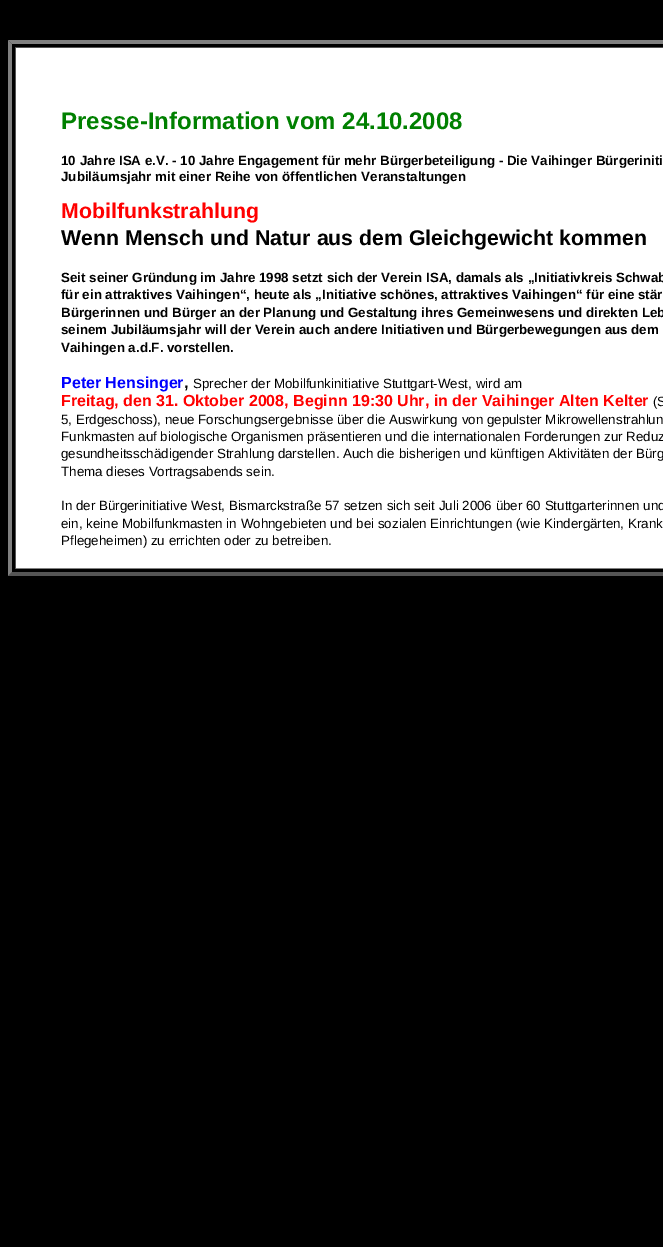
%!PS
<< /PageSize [663 1247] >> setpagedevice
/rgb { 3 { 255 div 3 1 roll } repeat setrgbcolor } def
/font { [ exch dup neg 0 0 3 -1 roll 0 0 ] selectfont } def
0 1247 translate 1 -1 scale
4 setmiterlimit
0 0 0 rgb
0 0 663 1247 rectfill
128 128 128 rgb
8 40 moveto 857 40 lineto 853 44 lineto 12 44 lineto closepath fill
85 85 85 rgb
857 576 moveto 8 576 lineto 12 572 lineto 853 572 lineto closepath fill
128 128 128 rgb
8 576 moveto 8 40 lineto 12 44 lineto 12 572 lineto closepath fill
[
  [16 48 647 520 255 255 255]
  [15 47 648 1 85 85 85]
  [15 568 648 1 128 128 128]
  [15 47 1 522 85 85 85]
] { aload pop rgb rectfill } forall
/LiberationSans-Bold 24 font
0 128 0 rgb
61 129 moveto (Presse-Information vom 24.10.2008) show
/LiberationSans-Bold 13.35 font
0 0 0 rgb
61 165 moveto (10 Jahre ISA e.V. - 10 Jahre Engagement für mehr Bürgerbeteiligung - Die Vaihinger Bürgeriniti) show
61 181 moveto (Jubiläumsjahr mit einer Reihe von öffentlichen Veranstaltungen) show
/LiberationSans-Bold 21.3 font
255 0 0 rgb
61 218 moveto (Mobilfunkstrahlung) show
0 0 0 rgb
61 245 moveto (Wenn Mensch und Natur aus dem Gleichgewicht kommen) show
/LiberationSans-Bold 13.35 font
[
  [(Seit seiner Gründung im Jahre 1998 setzt sich der Verein ISA, damals als „Initiativkreis Schwab) 61 282]
  [(für ein attraktives Vaihingen“, heute als „Initiative schönes, attraktives Vaihingen“ für eine stär) 61 299]
  [(Bürgerinnen und Bürger an der Planung und Gestaltung ihres Gemeinwesens und direkten Leb) 61 317]
  [(seinem Jubiläumsjahr will der Verein auch andere Initiativen und Bürgerbewegungen aus dem) 61 334]
  [(Vaihingen a.d.F. vorstellen.) 61 352]
] { aload pop moveto show } forall
/LiberationSans-Bold 16 font
0 0 255 rgb
61 388 moveto (Peter Hensinger) show
6 6 6 rgb
184 388 moveto (,) show
/LiberationSans-Regular 13.35 font
0 0 0 rgb
193 388 moveto (Sprecher der Mobilfunkinitiative Stuttgart-West, wird am) show
/LiberationSans-Bold 16 font
255 0 0 rgb
61 406 moveto (Freitag, den 31. Oktober 2008, Beginn 19:30 Uhr, in der Vaihinger Alten Kelter) show
/LiberationSans-Regular 13.35 font
0 0 0 rgb
[
  [(\(S) 653 406]
  [(5, Erdgeschoss\), neue Forschungsergebnisse über die Auswirkung von gepulster Mikrowellenstrahlun) 61 424]
  [(Funkmasten auf biologische Organismen präsentieren und die internationalen Forderungen zur Reduz) 61 441]
  [(gesundheitsschädigender Strahlung darstellen. Auch die bisherigen und künftigen Aktivitäten der Bürg) 61 458]
  [(Thema dieses Vortragsabends sein.) 61 476]
  [(In der Bürgerinitiative West, Bismarckstraße 57 setzen sich seit Juli 2006 über 60 Stuttgarterinnen und) 61 510]
  [(ein, keine Mobilfunkmasten in Wohngebieten und bei sozialen Einrichtungen \(wie Kindergärten, Krank) 61 528]
  [(Pflegeheimen\) zu errichten oder zu betreiben.) 61 545]
] { aload pop moveto show } forall
showpage
